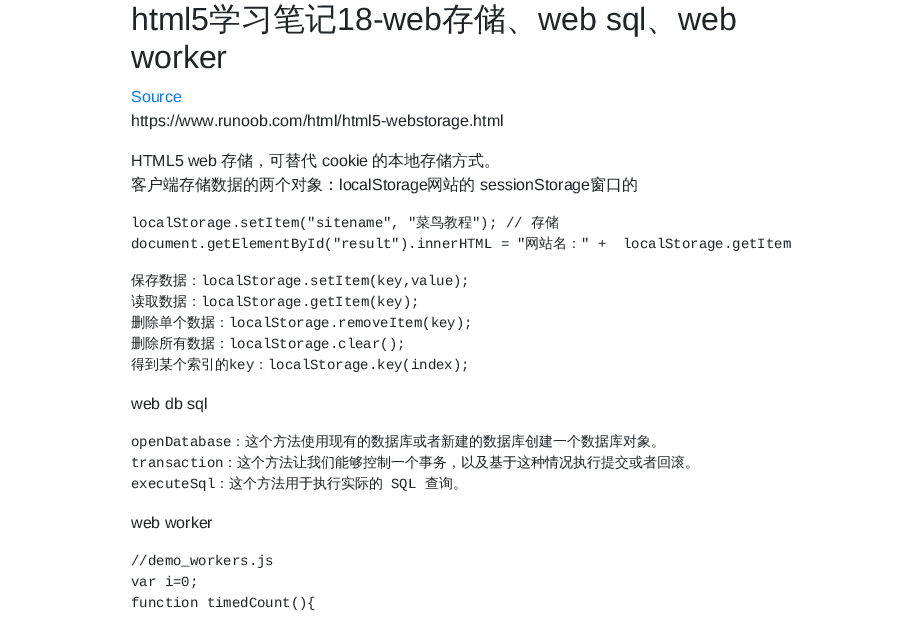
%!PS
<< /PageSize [921 628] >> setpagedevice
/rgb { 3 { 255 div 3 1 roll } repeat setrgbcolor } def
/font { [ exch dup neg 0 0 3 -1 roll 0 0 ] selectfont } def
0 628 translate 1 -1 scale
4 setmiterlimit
255 255 255 rgb
0 0 921 628 rectfill
/LiberationSans-Regular 32 font
33 37 41 rgb
131 30 moveto (html5) show
/WenQuanYiZenHei-Medium 32 font
209 30 moveto (学习笔记) show
/LiberationSans-Regular 32 font
337 30 moveto (18-web) show
/WenQuanYiZenHei-Medium 32 font
442 30 moveto (存储、) show
/LiberationSans-Regular 32 font
538 30 moveto (web sql) show
/WenQuanYiZenHei-Medium 32 font
646 30 moveto (、) show
/LiberationSans-Regular 32 font
678 30 moveto (web) show
131 68 moveto (worker) show
/LiberationSans-Regular 16 font
0 123 255 rgb
131 102 moveto (Source) show
33 37 41 rgb
131 126 moveto (https://www.runoob.com/html/html5-webstorage.html) show
131 166 moveto (HTML5 web) show
/WenQuanYiZenHei-Medium 16 font
221 166 moveto (存储，可替代) show
/LiberationSans-Regular 16 font
322 166 moveto (cookie) show
/WenQuanYiZenHei-Medium 16 font
372 166 moveto (的本地存储方式。) show
131 190 moveto (客户端存储数据的两个对象：) show
/LiberationSans-Regular 16 font
339 190 moveto (localStorage) show
/WenQuanYiZenHei-Medium 16 font
427 190 moveto (网站的) show
/LiberationSans-Regular 16 font
480 190 moveto (sessionStorage) show
/WenQuanYiZenHei-Medium 16 font
590 190 moveto (窗口的) show
/LiberationMono-Regular 14 font
131 227 moveto (localStorage.setItem\("sitename", ") show
/WenQuanYiZenHei-Medium 14 font
416 227 moveto (菜鸟教程) show
/LiberationMono-Regular 14 font
472 227 moveto ("\); //) show
/WenQuanYiZenHei-Medium 14 font
531 227 moveto (存储) show
/LiberationMono-Regular 14 font
131 248 moveto (document.getElementById\("result"\).innerHTML = ") show
/WenQuanYiZenHei-Medium 14 font
525 248 moveto (网站名：) show
/LiberationMono-Regular 14 font
581 248 moveto (" +) show
623 248 moveto (localStorage.getItem) show
/WenQuanYiZenHei-Medium 14 font
131 285 moveto (保存数据：) show
/LiberationMono-Regular 14 font
201 285 moveto (localStorage.setItem\(key,value\);) show
/WenQuanYiZenHei-Medium 14 font
131 306 moveto (读取数据：) show
/LiberationMono-Regular 14 font
201 306 moveto (localStorage.getItem\(key\);) show
/WenQuanYiZenHei-Medium 14 font
131 327 moveto (删除单个数据：) show
/LiberationMono-Regular 14 font
229 327 moveto (localStorage.removeItem\(key\);) show
/WenQuanYiZenHei-Medium 14 font
131 348 moveto (删除所有数据：) show
/LiberationMono-Regular 14 font
229 348 moveto (localStorage.clear\(\);) show
/WenQuanYiZenHei-Medium 14 font
131 369 moveto (得到某个索引的) show
/LiberationMono-Regular 14 font
229 369 moveto (key) show
/WenQuanYiZenHei-Medium 14 font
254 369 moveto (：) show
/LiberationMono-Regular 14 font
268 369 moveto (localStorage.key\(index\);) show
/LiberationSans-Regular 16 font
131 409 moveto (web db sql) show
/LiberationMono-Regular 14 font
131 446 moveto (openDatabase) show
/WenQuanYiZenHei-Medium 14 font
231 446 moveto (：这个方法使用现有的数据库或者新建的数据库创建一个数据库对象。) show
/LiberationMono-Regular 14 font
131 467 moveto (transaction) show
/WenQuanYiZenHei-Medium 14 font
223 467 moveto (：这个方法让我们能够控制一个事务，以及基于这种情况执行提交或者回滚。) show
/LiberationMono-Regular 14 font
131 488 moveto (executeSql) show
/WenQuanYiZenHei-Medium 14 font
215 488 moveto (：这个方法用于执行实际的) show
/LiberationMono-Regular 14 font
391 488 moveto (SQL) show
/WenQuanYiZenHei-Medium 14 font
425 488 moveto (查询。) show
/LiberationSans-Regular 16 font
131 528 moveto (web worker) show
/LiberationMono-Regular 14 font
[
  [(//demo_workers.js) 131 565]
  [(var i=0;) 131 586]
  [(function timedCount\(\){) 131 607]
] { aload pop moveto show } forall
showpage
